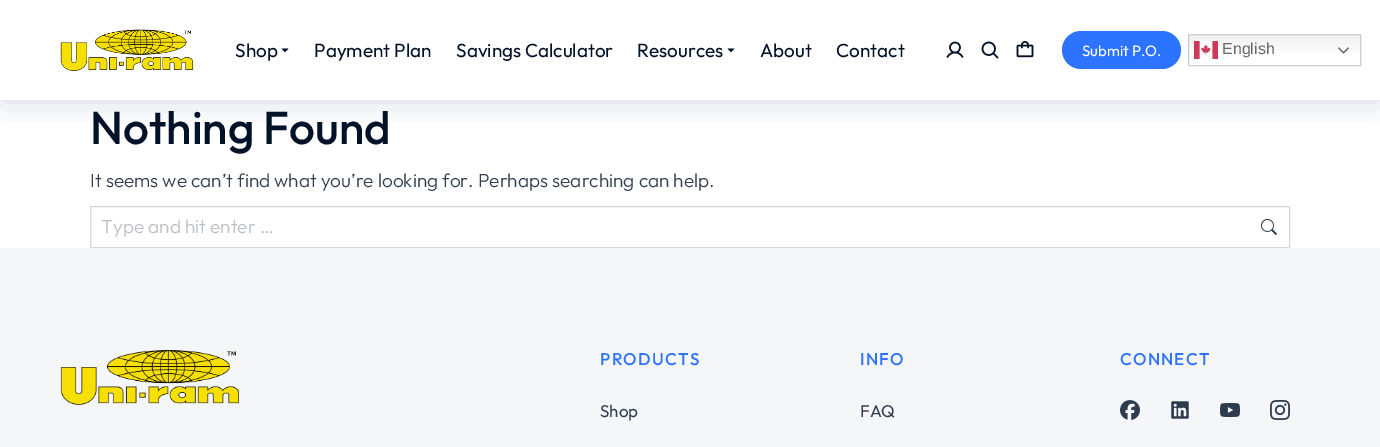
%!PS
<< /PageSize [1380 447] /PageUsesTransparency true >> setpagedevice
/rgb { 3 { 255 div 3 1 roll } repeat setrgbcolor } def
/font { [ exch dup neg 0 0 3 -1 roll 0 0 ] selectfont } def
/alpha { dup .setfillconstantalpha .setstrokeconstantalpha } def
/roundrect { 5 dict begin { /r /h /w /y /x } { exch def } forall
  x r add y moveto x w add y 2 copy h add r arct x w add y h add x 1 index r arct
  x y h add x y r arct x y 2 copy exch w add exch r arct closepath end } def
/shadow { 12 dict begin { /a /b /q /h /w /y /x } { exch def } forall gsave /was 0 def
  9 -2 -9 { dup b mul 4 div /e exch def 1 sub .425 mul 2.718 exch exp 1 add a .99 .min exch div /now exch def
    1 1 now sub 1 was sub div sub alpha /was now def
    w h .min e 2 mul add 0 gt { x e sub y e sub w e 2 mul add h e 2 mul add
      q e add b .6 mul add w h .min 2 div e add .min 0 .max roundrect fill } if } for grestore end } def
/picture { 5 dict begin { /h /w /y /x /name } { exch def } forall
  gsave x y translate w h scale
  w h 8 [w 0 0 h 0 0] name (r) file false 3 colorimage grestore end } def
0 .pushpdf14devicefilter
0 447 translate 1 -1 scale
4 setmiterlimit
255 255 255 rgb
0 0 1380 447 rectfill
gsave
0 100 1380 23 rectclip
64 92 146 rgb
0 0 1380 100 0 16.5 0.25 shadow
grestore
(img/1.rgb) 60 29 134 43 picture
(img/2.rgb) 281 48 8 5 picture
(img/2.rgb) 727 48 8 5 picture
(img/3.rgb) 946 41 18 17 picture
(img/4.rgb) 981 41 18 18 picture
(img/5.rgb) 1016 41 18 17 picture
44 116 255 rgb
1062 31 119 38 19 roundrect fill
gsave 1189 35 moveto 1360 35 lineto 1360 53 lineto 1189 53 lineto closepath clip newpath
<< /ShadingType 2 /ColorSpace /DeviceRGB /Coords [1275 34 1275 66] /Extend [true true] /Function << /FunctionType 3 /Domain [0 1] /Functions [<< /FunctionType 2 /Domain [0 1] /C0 [0.937 0.937 0.937] /C1 [1 1 1] /N 1 >> << /FunctionType 2 /Domain [0 1] /C0 [1 1 1] /C1 [1 1 1] /N 1 >>] /Bounds [0.7] /Encode [0 1 0 1] >> >> shfill grestore
204 204 204 rgb
1188.5 34.5 172 31 rectstroke
(img/6.rgb) 1194 41 24 18 picture
(img/7.rgb) 1338 47 11 7 picture
212 215 218 rgb
90.5 206.5 1199 41 rectstroke
(img/8.rgb) 1261 219 16 16 picture
245 246 247 rgb
0 248 1380 199 rectfill
(img/9.rgb) 60 350 180 56 picture
(img/10.rgb) 1120 400 20 20 picture
(img/11.rgb) 1171 401 18 18 picture
(img/12.rgb) 1220 402 20 16 picture
(img/13.rgb) 1270 400 20 20 picture
/Outfit-Regular 19 font
2 18 40 rgb
[
  [(Shop) 235 57]
  [(Payment Plan) 314 57]
  [(Savings Calculator) 456 57]
  [(Resources) 637 57]
  [(About) 760 57]
  [(Contact) 836 57]
] { aload pop moveto show } forall
/Outfit-Regular 15 font
255 255 255 rgb
1082 56 moveto (Submit P.O.) show
/LiberationSans-Regular 16 font
102 102 102 rgb
1222 54 moveto (English) show
/Outfit-Medium 46 font
2 18 40 rgb
90 144 moveto (Nothing Found) show
/Outfit-Light 19 font
48 61 79 rgb
90 187 moveto (It seems we can’t find what you’re looking for. Perhaps searching can help.) show
187 191 197 rgb
101 233 moveto (Type and hit enter …) show
/Outfit-Medium 17 font
44 116 255 rgb
600 365 moveto 1.25 0 (PRODUCTS) ashow
/Outfit-Regular 17 font
48 61 79 rgb
600 417 moveto (Shop) show
/Outfit-Medium 17 font
44 116 255 rgb
860 365 moveto 1.25 0 (INFO) ashow
/Outfit-Regular 17 font
48 61 79 rgb
860 417 moveto (FAQ) show
/Outfit-Medium 17 font
44 116 255 rgb
1120 365 moveto 1.25 0 (CONNECT) ashow
.poppdf14devicefilter showpage
